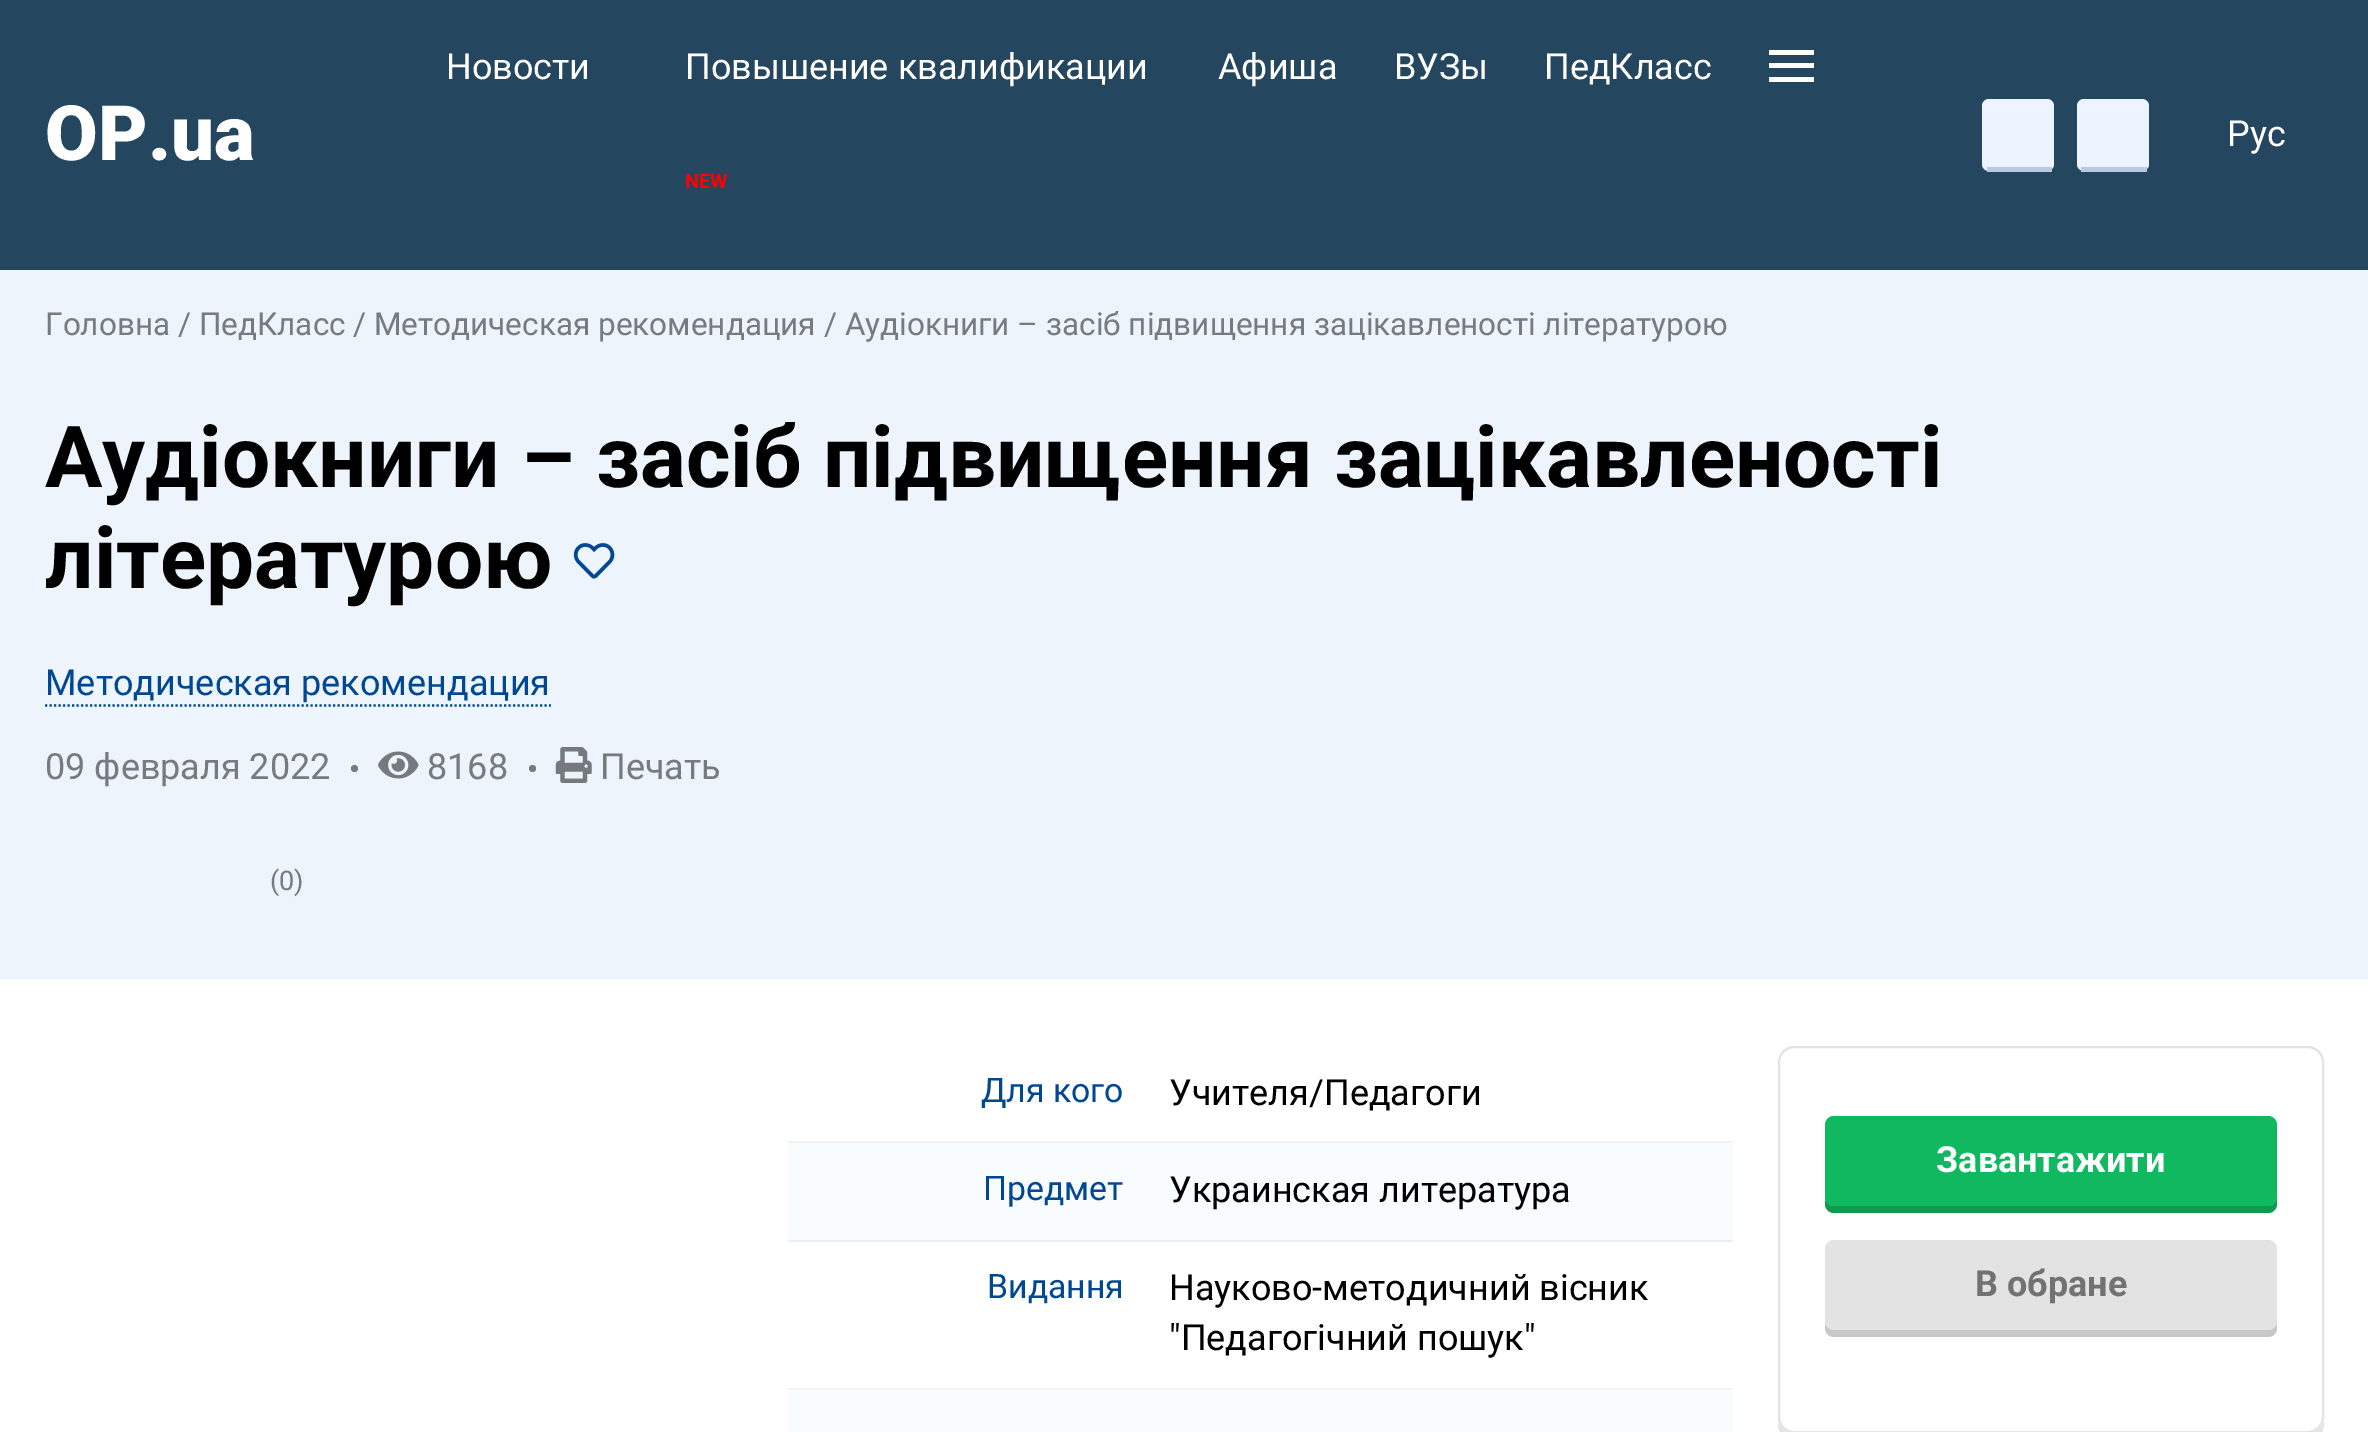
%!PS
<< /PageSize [2368 1432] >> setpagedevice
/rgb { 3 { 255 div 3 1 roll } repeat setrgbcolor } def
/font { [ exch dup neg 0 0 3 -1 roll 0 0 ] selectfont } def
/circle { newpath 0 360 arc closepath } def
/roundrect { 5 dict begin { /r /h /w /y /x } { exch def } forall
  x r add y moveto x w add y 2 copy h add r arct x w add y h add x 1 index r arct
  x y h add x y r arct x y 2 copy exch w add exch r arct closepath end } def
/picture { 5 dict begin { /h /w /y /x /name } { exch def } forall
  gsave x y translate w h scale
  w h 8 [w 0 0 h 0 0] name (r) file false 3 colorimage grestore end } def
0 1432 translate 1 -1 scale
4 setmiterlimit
255 255 255 rgb
0 0 2368 1432 rectfill
[
  [0 0 2368 270 36 71 95]
  [1769 50 45 5 255 255 255]
  [1769 63 45 5 255 255 255]
  [1769 77 45 5 255 255 255]
] { aload pop rgb rectfill } forall
237 243 255 rgb
1982 99 72 72 7 roundrect fill
186 200 227 rgb
1987 167 65 5 rectfill
237 243 255 rgb
2077 99 72 72 7 roundrect fill
186 200 227 rgb
2081 167 66 5 rectfill
237 244 252 rgb
0 270 2368 709 rectfill
(img/1.rgb) 573 543 42 36 picture
1 72 147 rgb
2.2 setlinewidth
[2.25 2.25] 0 setdash
45 705.5 moveto 551 705.5 lineto stroke
119 122 126 rgb
354.5 768.5 3.5 circle fill
(img/2.rgb) 378 751 41 28 picture
532.5 768.5 3.5 circle fill
(img/3.rgb) 555 747 37 36 picture
[
  [788 1141 945 2 242 242 242]
  [788 1143 945 97 248 252 255]
  [788 1240 945 2 236 239 242]
  [788 1388 945 2 242 242 242]
  [788 1391 945 41 248 252 255]
] { aload pop rgb rectfill } forall
227 227 227 rgb
1778 1421 moveto 1778 1424 lineto 1778 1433 1785 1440 1794 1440 curveto 2308 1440 lineto 2317 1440 2324 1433 2324 1424 curveto 2324 1420 lineto 2323 1428 2316 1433 2308 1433 curveto 1793 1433 lineto 1786 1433 1780 1428 1778 1421 curveto closepath fill
2 setlinewidth
[] 0 setdash
1779 1047 544 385 15 roundrect stroke
14 155 80 rgb
1825 1199 moveto 1825 1204 lineto 1825 1209 1829 1213 1834 1213 curveto 2268 1213 lineto 2273 1213 2277 1209 2277 1204 curveto 2277 1197 lineto 2277 1202 2273 1206 2268 1206 curveto 1834 1206 lineto 1830 1206 1826 1203 1825 1199 curveto closepath fill
16 185 95 rgb
1825 1116 452 90 9 roundrect fill
200 200 200 rgb
1825 1323 moveto 1825 1328 lineto 1825 1333 1829 1337 1834 1337 curveto 2268 1337 lineto 2273 1337 2277 1333 2277 1328 curveto 2277 1321 lineto 2277 1326 2273 1330 2268 1330 curveto 1834 1330 lineto 1830 1330 1826 1327 1825 1323 curveto closepath fill
227 227 227 rgb
1825 1240 452 90 9 roundrect fill
/Roboto-Black 76.5 font
255 255 255 rgb
45 160 moveto (OP.ua) show
/Roboto-Regular 36 font
446 79 moveto (Новости) show
685 79 moveto (Повышение квалификации) show
/Roboto-Bold 20 font
255 0 0 rgb
685 188 moveto (NEW) show
/Roboto-Regular 36 font
255 255 255 rgb
[
  [(Афиша) 1218 79]
  [(ВУЗы) 1394 79]
  [(ПедКласс) 1544 79]
  [(Рус) 2227 146]
] { aload pop moveto show } forall
/Roboto-Regular 31.5 font
119 122 126 rgb
[
  [(Головна) 45 335]
  [(/ ПедКласс) 178 335]
  [(/ Методическая рекомендация) 353 335]
  [(/ Аудіокниги – засіб підвищення зацікавленості літературою) 824 335]
] { aload pop moveto show } forall
/Roboto-Bold 85.5 font
0 0 0 rgb
45 487 moveto (Аудіокниги – засіб підвищення зацікавленості) show
45 588 moveto (літературою) show
/Roboto-Regular 36 font
1 72 147 rgb
45 695 moveto (Методическая рекомендация) show
119 122 126 rgb
[
  [(09 февраля 2022) 45 779]
  [(8168) 427 779]
  [(Печать) 600 779]
] { aload pop moveto show } forall
/Roboto-Regular 27 font
270 890 moveto (\(0\)) show
/Roboto-Regular 33.75 font
1 72 147 rgb
981 1102 moveto (Для кого) show
/Roboto-Regular 36 font
0 0 0 rgb
1169 1105 moveto (Учителя/Педагоги) show
/Roboto-Regular 33.75 font
1 72 147 rgb
983 1200 moveto (Предмет) show
/Roboto-Regular 36 font
0 0 0 rgb
1169 1202 moveto (Украинская литература) show
/Roboto-Regular 33.75 font
1 72 147 rgb
987 1298 moveto (Видання) show
/Roboto-Regular 36 font
0 0 0 rgb
1169 1300 moveto (Науково-методичний вісник) show
1169 1350 moveto ("Педагогічний пошук") show
/Roboto-Bold 36 font
255 255 255 rgb
1936 1172 moveto (Завантажити) show
114 114 114 rgb
1975 1296 moveto (В обране) show
showpage
